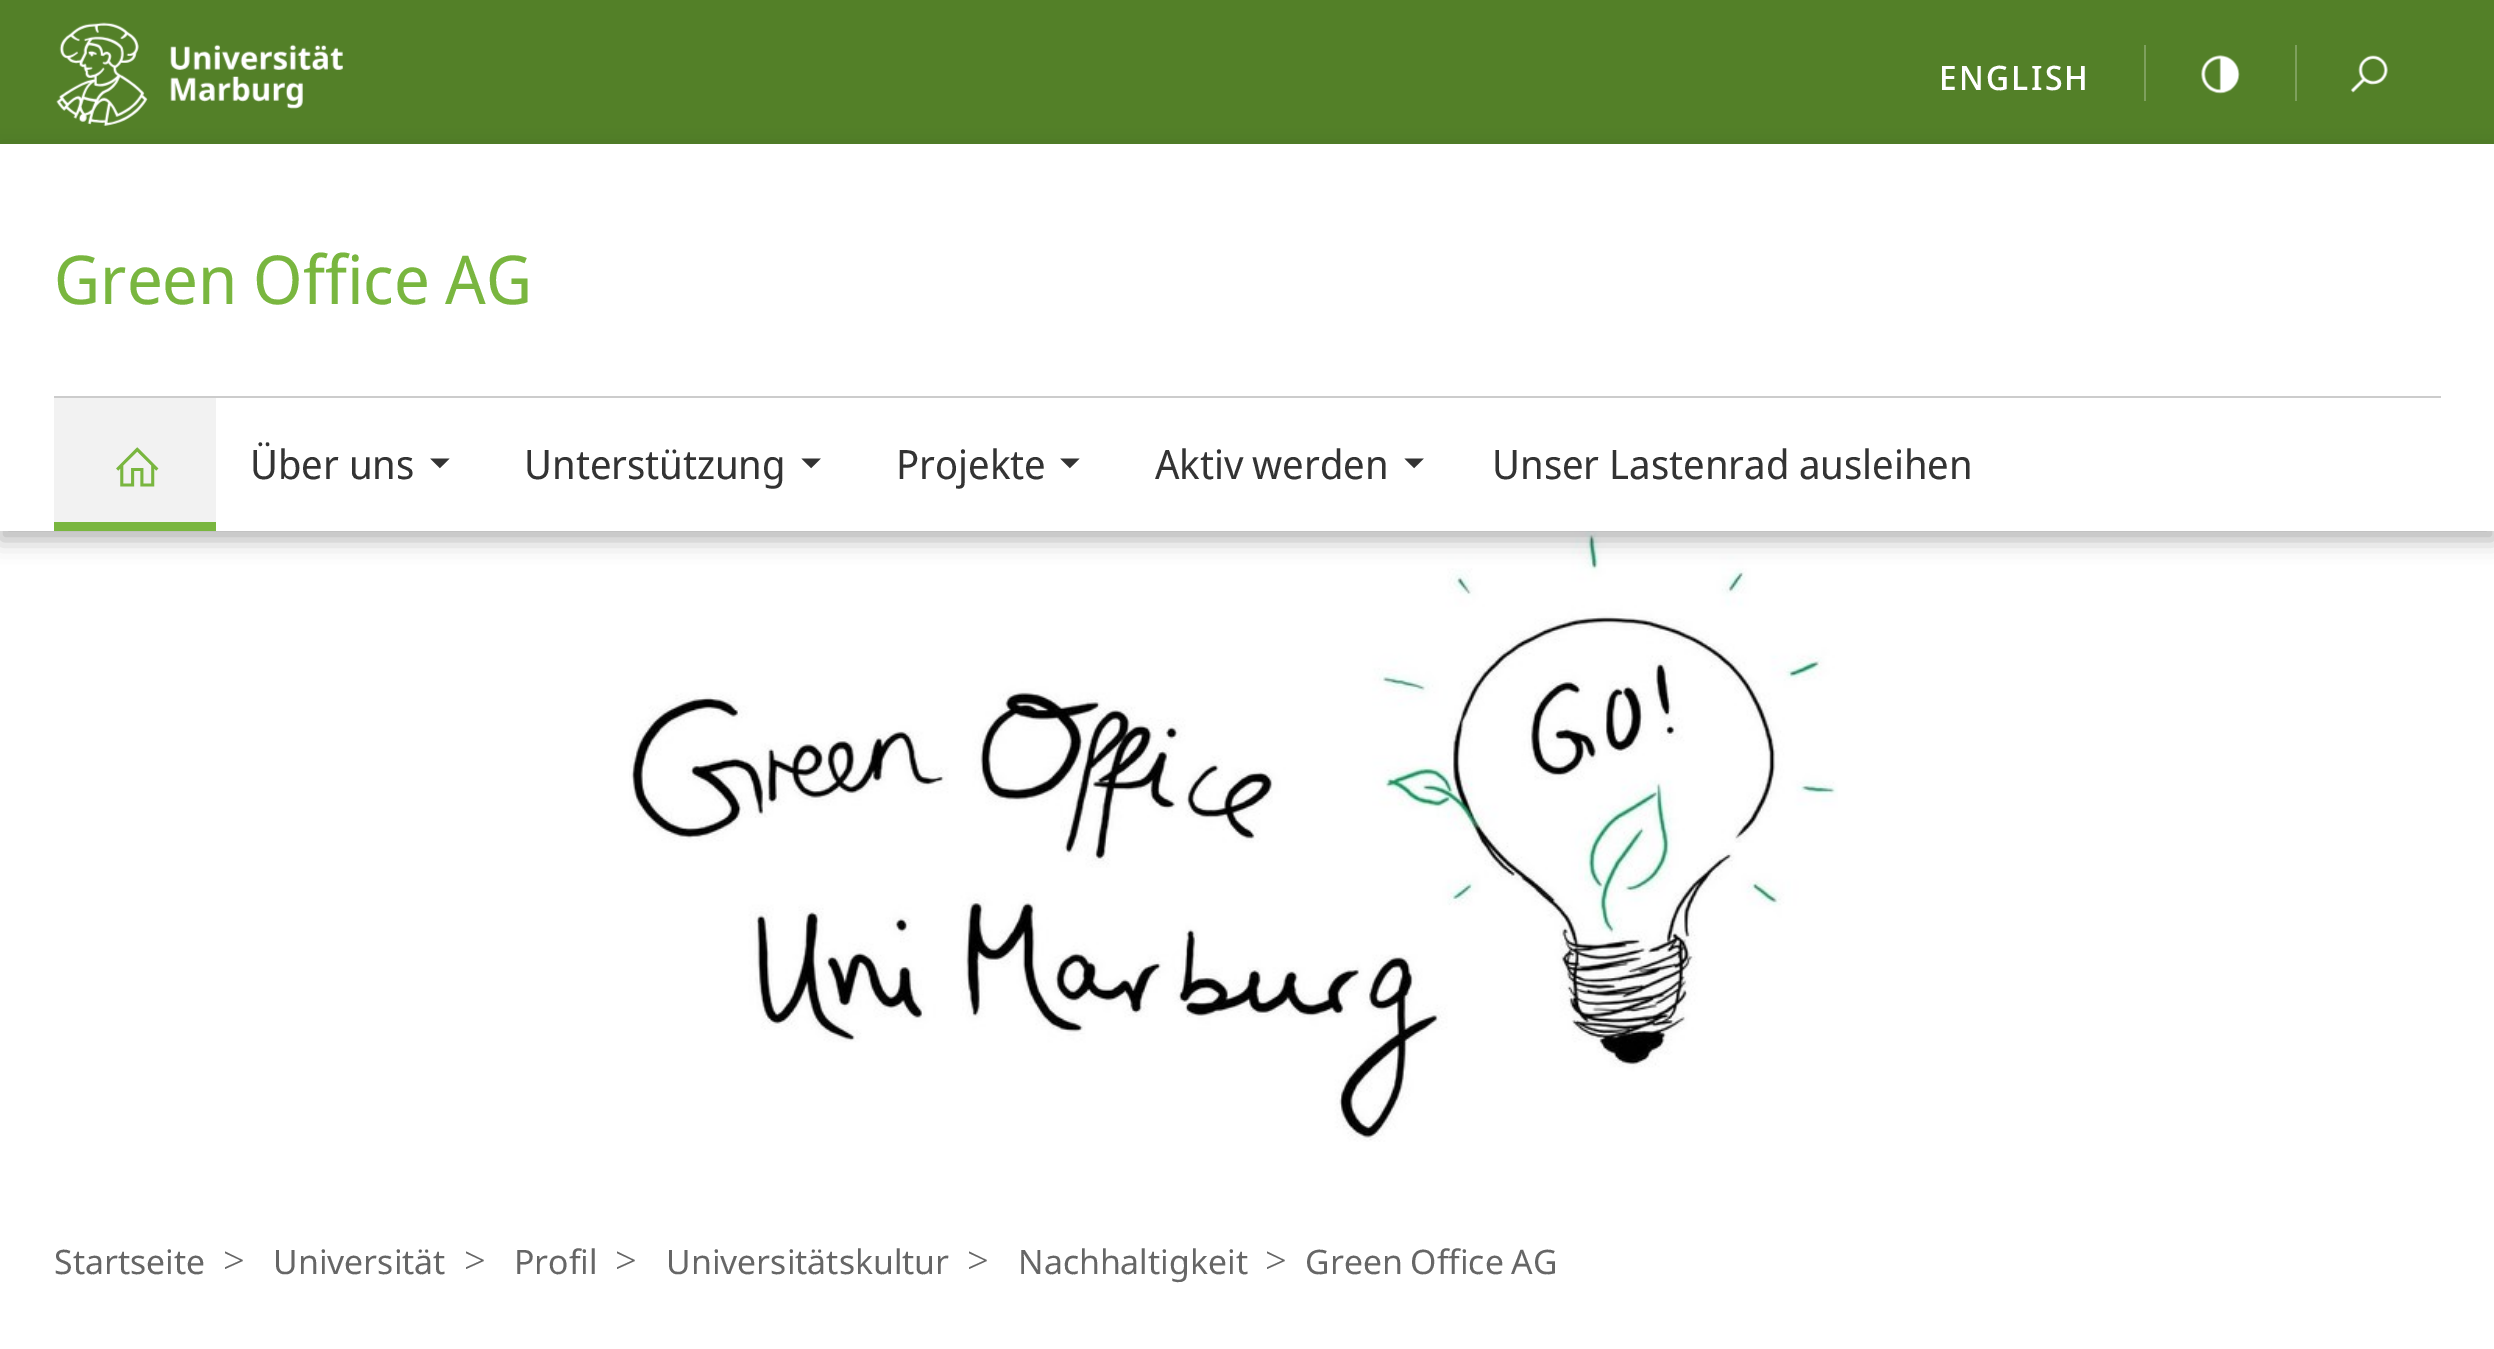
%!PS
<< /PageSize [2494 1349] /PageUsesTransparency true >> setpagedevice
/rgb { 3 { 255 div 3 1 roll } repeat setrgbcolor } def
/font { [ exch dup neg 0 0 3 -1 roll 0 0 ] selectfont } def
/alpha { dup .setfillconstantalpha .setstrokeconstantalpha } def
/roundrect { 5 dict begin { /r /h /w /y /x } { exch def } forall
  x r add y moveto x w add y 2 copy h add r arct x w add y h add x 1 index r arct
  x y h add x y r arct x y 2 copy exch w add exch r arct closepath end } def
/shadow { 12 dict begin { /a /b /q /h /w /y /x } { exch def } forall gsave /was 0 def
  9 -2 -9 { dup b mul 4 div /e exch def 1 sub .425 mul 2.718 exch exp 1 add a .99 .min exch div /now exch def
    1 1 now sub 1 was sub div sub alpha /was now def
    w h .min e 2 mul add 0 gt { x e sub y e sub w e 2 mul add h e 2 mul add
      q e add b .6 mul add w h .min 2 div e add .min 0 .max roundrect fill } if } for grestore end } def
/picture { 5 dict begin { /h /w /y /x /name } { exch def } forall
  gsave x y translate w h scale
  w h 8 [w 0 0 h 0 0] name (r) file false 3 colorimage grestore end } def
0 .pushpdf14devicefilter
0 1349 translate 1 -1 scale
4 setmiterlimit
255 255 255 rgb
0 0 2494 1349 rectfill
83 128 40 rgb
0 0 2494 144 rectfill
(img/1.rgb) 56 22 287 104 picture
126 160 94 rgb
2144 45 2 56 rectfill
(img/2.rgb) 2201 55 39 39 picture
2295 45 2 56 rectfill
(img/3.rgb) 2350 55 38 38 picture
(img/7.rgb) 629 531 1209 611 picture
gsave
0 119 moveto 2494 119 lineto 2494 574 lineto 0 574 lineto closepath 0 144 moveto 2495 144 lineto 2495 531 lineto 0 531 lineto closepath eoclip newpath
0 0 0 rgb
0 153 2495 387 0 11 0.3 shadow
grestore
[
  [54 396 2387 2 204 204 204]
  [54 398 162 124 242 242 242]
  [54 522 162 9 121 182 63]
] { aload pop rgb rectfill } forall
(img/4.rgb) 116 447 43 40 picture
(img/5.rgb) 430 458 20 11 picture
(img/6.rgb) 801 458 20 11 picture
(img/5.rgb) 1060 458 20 11 picture
(img/6.rgb) 1404 458 20 11 picture
/NotoSansDisplay-Medium 33.75 font
255 255 255 rgb
1939 90 moveto 2.25 0 (ENGLISH) ashow
/NotoSansDisplay-Regular 67.5 font
121 182 63 rgb
54 304 moveto -1 0 32 (Green Office AG) widthshow
/NotoSansDisplay-Regular 40.5 font
51 51 51 rgb
[
  [(Über uns) 250 479]
  [(Unterstützung) 524 479]
  [(Projekte) 896 479]
] { aload pop moveto show } forall
1155 479 moveto -1 0 32 (Aktiv werden) widthshow
1492 479 moveto (Unser Lastenrad ausleihen) show
/NotoSans-Regular 33.75 font
102 102 102 rgb
54 1274 moveto (Startseite) show
/NotoSans-Light 38 font
223 1274 moveto (>) show
/NotoSans-Regular 33.75 font
273 1274 moveto (Universität) show
/NotoSans-Light 38 font
464 1274 moveto (>) show
/NotoSans-Regular 33.75 font
514 1274 moveto (Profil) show
/NotoSans-Light 38 font
615 1274 moveto (>) show
/NotoSans-Regular 33.75 font
666 1274 moveto (Universitätskultur) show
/NotoSans-Light 38 font
967 1274 moveto (>) show
/NotoSans-Regular 33.75 font
1018 1274 moveto (Nachhaltigkeit) show
/NotoSans-Light 38 font
1265 1274 moveto (>) show
/NotoSans-Regular 33.75 font
1305 1274 moveto -1 0 32 (Green Office AG) widthshow
.poppdf14devicefilter showpage
